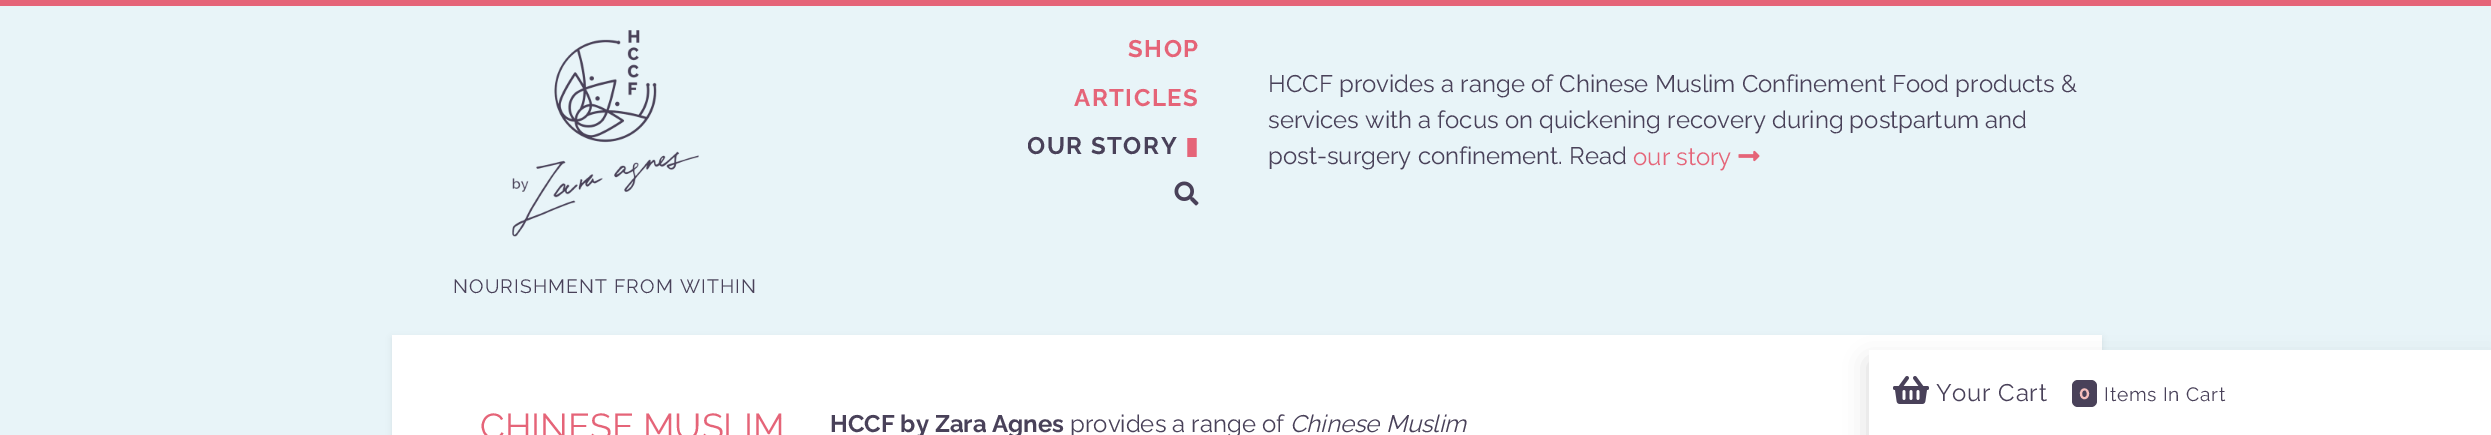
%!PS
<< /PageSize [2491 435] /PageUsesTransparency true >> setpagedevice
/rgb { 3 { 255 div 3 1 roll } repeat setrgbcolor } def
/font { [ exch dup neg 0 0 3 -1 roll 0 0 ] selectfont } def
/alpha { dup .setfillconstantalpha .setstrokeconstantalpha } def
/roundrect { 5 dict begin { /r /h /w /y /x } { exch def } forall
  x r add y moveto x w add y 2 copy h add r arct x w add y h add x 1 index r arct
  x y h add x y r arct x y 2 copy exch w add exch r arct closepath end } def
/shadow { 12 dict begin { /a /b /q /h /w /y /x } { exch def } forall gsave /was 0 def
  9 -2 -9 { dup b mul 4 div /e exch def 1 sub .425 mul 2.718 exch exp 1 add a .99 .min exch div /now exch def
    1 1 now sub 1 was sub div sub alpha /was now def
    w h .min e 2 mul add 0 gt { x e sub y e sub w e 2 mul add h e 2 mul add
      q e add b .6 mul add w h .min 2 div e add .min 0 .max roundrect fill } if } for grestore end } def
/picture { 5 dict begin { /h /w /y /x /name } { exch def } forall
  gsave x y translate w h scale
  w h 8 [w 0 0 h 0 0] name (r) file false 3 colorimage grestore end } def
0 .pushpdf14devicefilter
0 435 translate 1 -1 scale
4 setmiterlimit
232 244 248 rgb
0 0 2491 435 rectfill
229 100 120 rgb
0 0 2491 6 rectfill
(img/1.rgb) 1174 181 25 25 picture
(img/2.rgb) 1738 150 22 12 picture
(img/3.rgb) 512 30 187 207 picture
0 0 0 rgb
392 338 1710 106 0 3 0.07 shadow
255 255 255 rgb
392 335 1710 100 rectfill
0 0 0 rgb
1869 362 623 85 0 12 0.15 shadow
255 255 255 rgb
1869 350 622 85 rectfill
(img/4.rgb) 1893 376 36 28 picture
73 65 89 rgb
2072 380 25 27 6 roundrect fill
/Raleway-Bold 24 font
229 100 120 rgb
1128 57 moveto 1.5 0 (SHOP) ashow
1074 106 moveto 1.5 0 (ARTICLES) ashow
gsave
1028 129 172 36 rectclip
73 65 89 rgb
1027 154 moveto 1.5 0 (OUR STORY) ashow
grestore
/DejaVuSans-Bold 24 font
1185 154 moveto 1.5 0 (▮) ashow
/Raleway-Regular 24 font
73 65 89 rgb
[
  [(HCCF provides a range of Chinese Muslim Confinement Food products &) 1268 92]
  [(services with a focus on quickening recovery during postpartum and) 1268 128]
  [(post-surgery confinement. Read) 1268 164]
] { aload pop moveto show } forall
229 100 120 rgb
1633 165 moveto (our story) show
/Raleway-Regular 19.25 font
73 65 89 rgb
453 293 moveto 1.15 0 (NOURISHMENT FROM WITHIN) ashow
/Raleway-Regular 36 font
229 100 120 rgb
480 439 moveto (CHINESE MUSLIM) show
/Raleway-Bold 24 font
73 65 89 rgb
830 432 moveto (HCCF by Zara Agnes) show
/Raleway-Regular 24 font
1070 432 moveto (provides a range of) show
/Raleway-Italic 24 font
1290 432 moveto (Chinese Muslim) show
/Raleway-Regular 24 font
1936 401 moveto 0.75 0 (Your Cart) ashow
/Raleway-Bold 18 font
244 190 188 rgb
2079 399 moveto 1 0 (0) ashow
/Raleway-Regular 19.25 font
73 65 89 rgb
2104 401 moveto 0.75 0 (Items In Cart) ashow
.poppdf14devicefilter showpage
